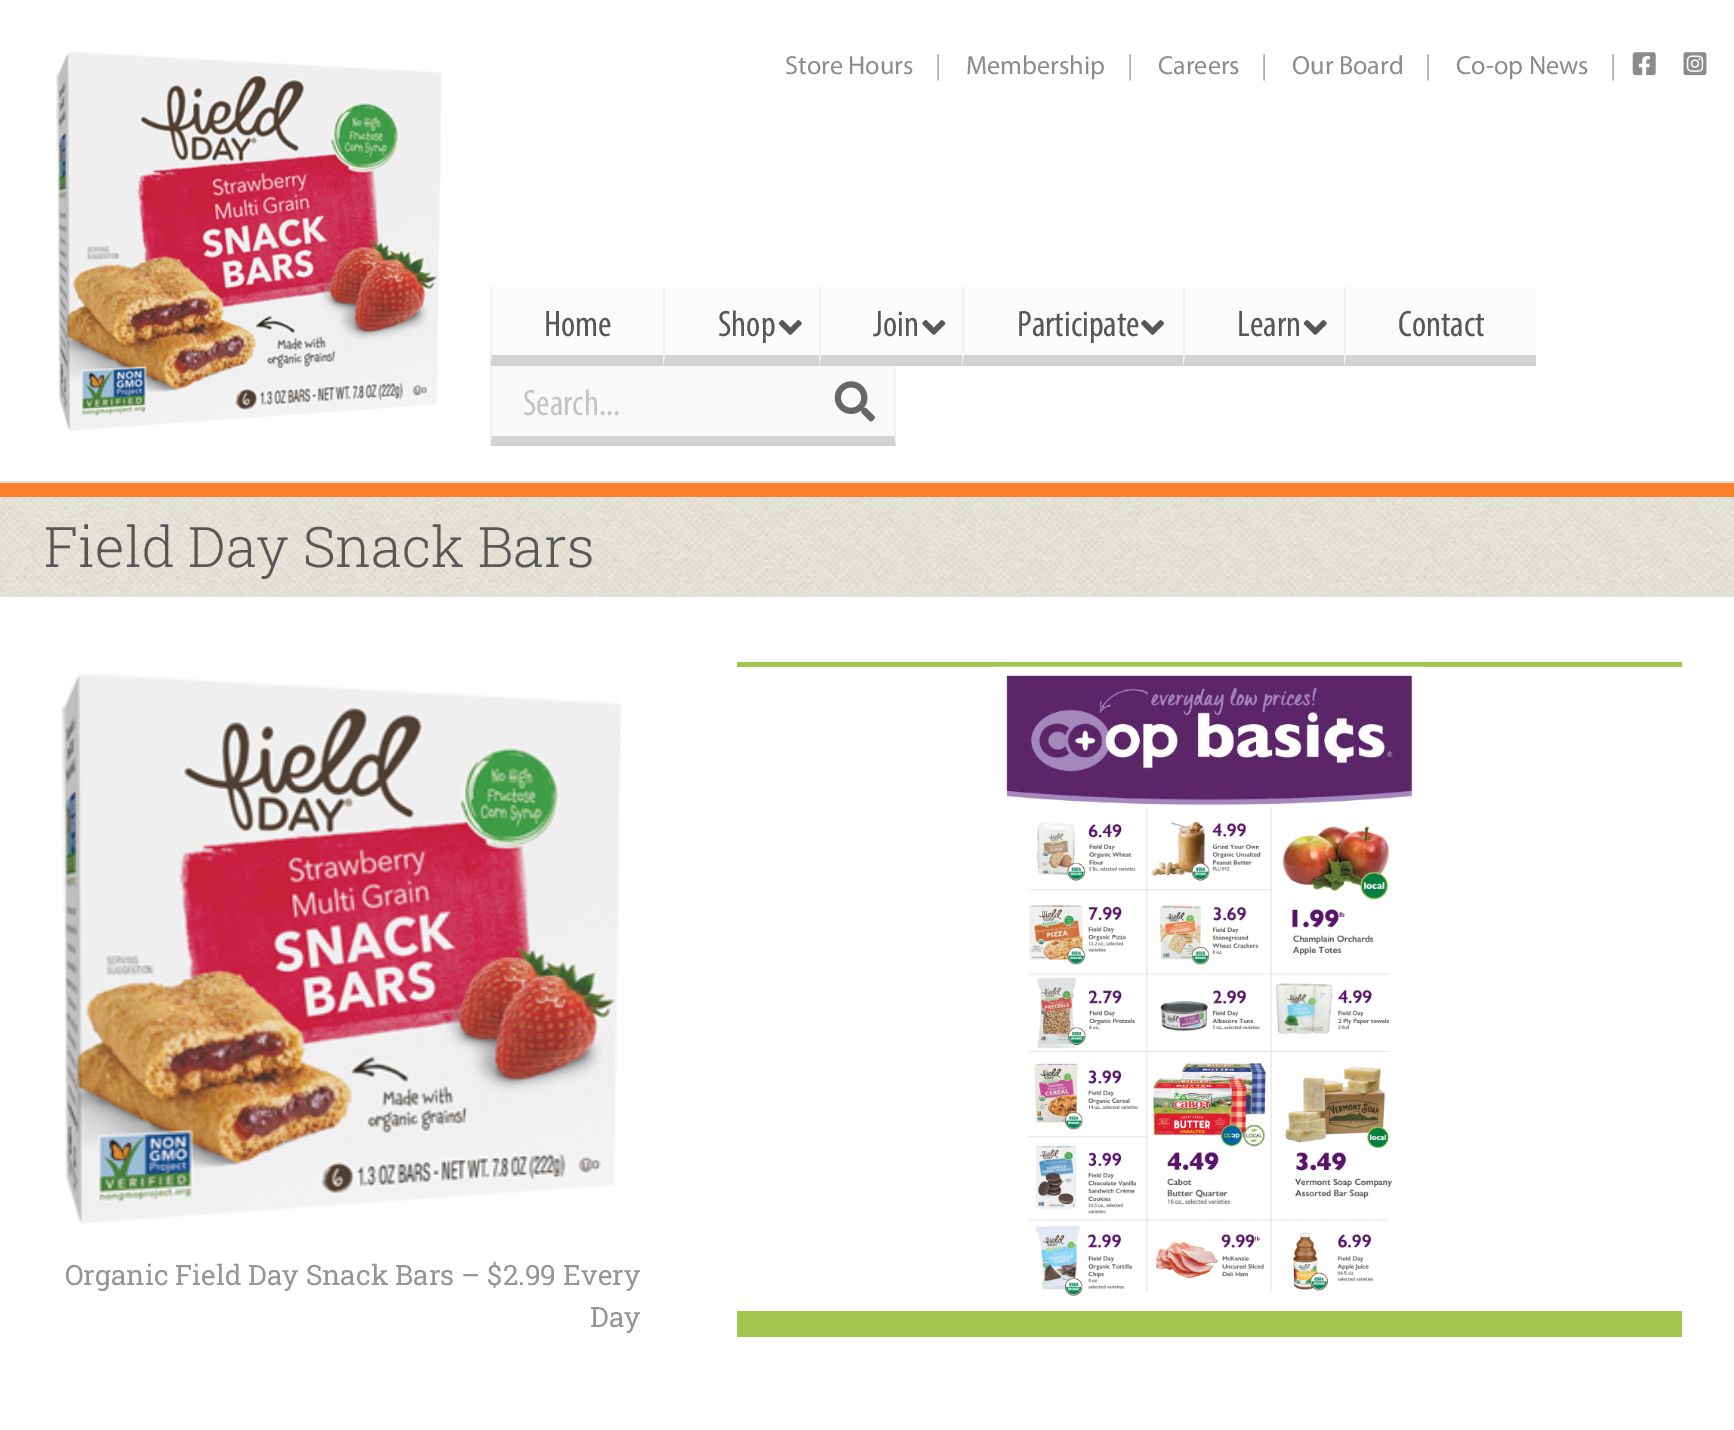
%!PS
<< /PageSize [1734 1430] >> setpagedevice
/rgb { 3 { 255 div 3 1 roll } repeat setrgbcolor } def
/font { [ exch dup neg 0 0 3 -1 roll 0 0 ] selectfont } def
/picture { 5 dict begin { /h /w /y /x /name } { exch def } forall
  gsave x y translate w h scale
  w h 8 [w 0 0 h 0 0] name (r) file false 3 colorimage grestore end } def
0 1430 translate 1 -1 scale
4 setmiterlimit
255 255 255 rgb
0 0 1734 1430 rectfill
(img/1.rgb) 1632 52 24 24 picture
(img/2.rgb) 1683 52 24 24 picture
255 127 41 rgb
0 483 1734 14 rectfill
(img/3.rgb) 56 51 386 380 picture
251 251 251 rgb
490 287 473 79 rectfill
211 211 213 rgb
663 366 moveto 490 366 lineto 492 355 lineto 663 355 lineto closepath fill
241 241 241 rgb
490 366 moveto 490 287 lineto 492 287 lineto 492 355 lineto closepath fill
211 211 213 rgb
819 366 moveto 663 366 lineto 665 355 lineto 819 355 lineto closepath fill
241 241 241 rgb
663 366 moveto 663 287 lineto 665 287 lineto 665 355 lineto closepath fill
(img/4.rgb) 778 320 24 15 picture
211 211 213 rgb
962 366 moveto 819 366 lineto 821 355 lineto 962 355 lineto closepath fill
241 241 241 rgb
819 366 moveto 819 287 lineto 821 287 lineto 821 355 lineto closepath fill
(img/5.rgb) 922 320 24 15 picture
251 251 251 rgb
963 287 220 74 rectfill
211 211 213 rgb
1183 366 moveto 962 366 lineto 964 355 lineto 1183 355 lineto closepath fill
241 241 241 rgb
962 366 moveto 962 287 lineto 964 287 lineto 964 355 lineto closepath fill
(img/6.rgb) 1141 320 23 15 picture
251 251 251 rgb
1183 287 354 79 rectfill
211 211 213 rgb
1344 366 moveto 1183 366 lineto 1185 355 lineto 1344 355 lineto closepath fill
241 241 241 rgb
1183 366 moveto 1183 287 lineto 1185 287 lineto 1185 355 lineto closepath fill
(img/4.rgb) 1303 320 24 15 picture
211 211 213 rgb
1536 366 moveto 1344 366 lineto 1346 355 lineto 1536 355 lineto closepath fill
241 241 241 rgb
1344 366 moveto 1344 287 lineto 1346 287 lineto 1346 355 lineto closepath fill
896 366 moveto 896 446 lineto 894 436 lineto 894 366 lineto closepath fill
211 211 213 rgb
896 446 moveto 490 446 lineto 492 436 lineto 894 436 lineto closepath fill
241 241 241 rgb
490 446 moveto 490 366 lineto 492 366 lineto 492 436 lineto closepath fill
249 249 249 rgb
492 366 402 70 rectfill
(img/7.rgb) 834 381 41 41 picture
224 224 224 rgb
0 481 1734 2 rectfill
(img/8.rgb) 0 497 1734 98 picture
0 595 1734 2 rectfill
(img/9.rgb) 61 673 561 551 picture
159 197 77 rgb
737 662 945 5 rectfill
737 1311 945 26 rectfill
(img/10.rgb) 994 666 431 630 picture
/Myriad-Regular 26.25 font
140 140 140 rgb
785 74 moveto (Store Hours) show
176 176 176 rgb
935 74 moveto (|) show
140 140 140 rgb
966 74 moveto (Membership) show
176 176 176 rgb
1127 74 moveto (|) show
140 140 140 rgb
1158 74 moveto (Careers) show
176 176 176 rgb
1261 74 moveto (|) show
140 140 140 rgb
1292 74 moveto (Our Board) show
176 176 176 rgb
1425 74 moveto (|) show
140 140 140 rgb
1456 74 moveto (Co-op News) show
176 176 176 rgb
1610 74 moveto (|) show
/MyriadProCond-Regular 37 font
87 87 87 rgb
[
  [(Home) 544 336]
  [(Shop) 718 336]
  [(Join) 873 336]
  [(Participate) 1017 336]
  [(Learn) 1237 336]
  [(Contact) 1398 336]
] { aload pop moveto show } forall
195 196 198 rgb
523 415 moveto (Search...) show
/RobotoSlab-Light 56 font
87 87 87 rgb
44 567 moveto (Field Day Snack Bars) show
/RobotoSlab-Regular 28 font
150 150 150 rgb
65 1285 moveto (Organic Field Day Snack Bars – $2.99 Every) show
590 1327 moveto (Day) show
showpage
